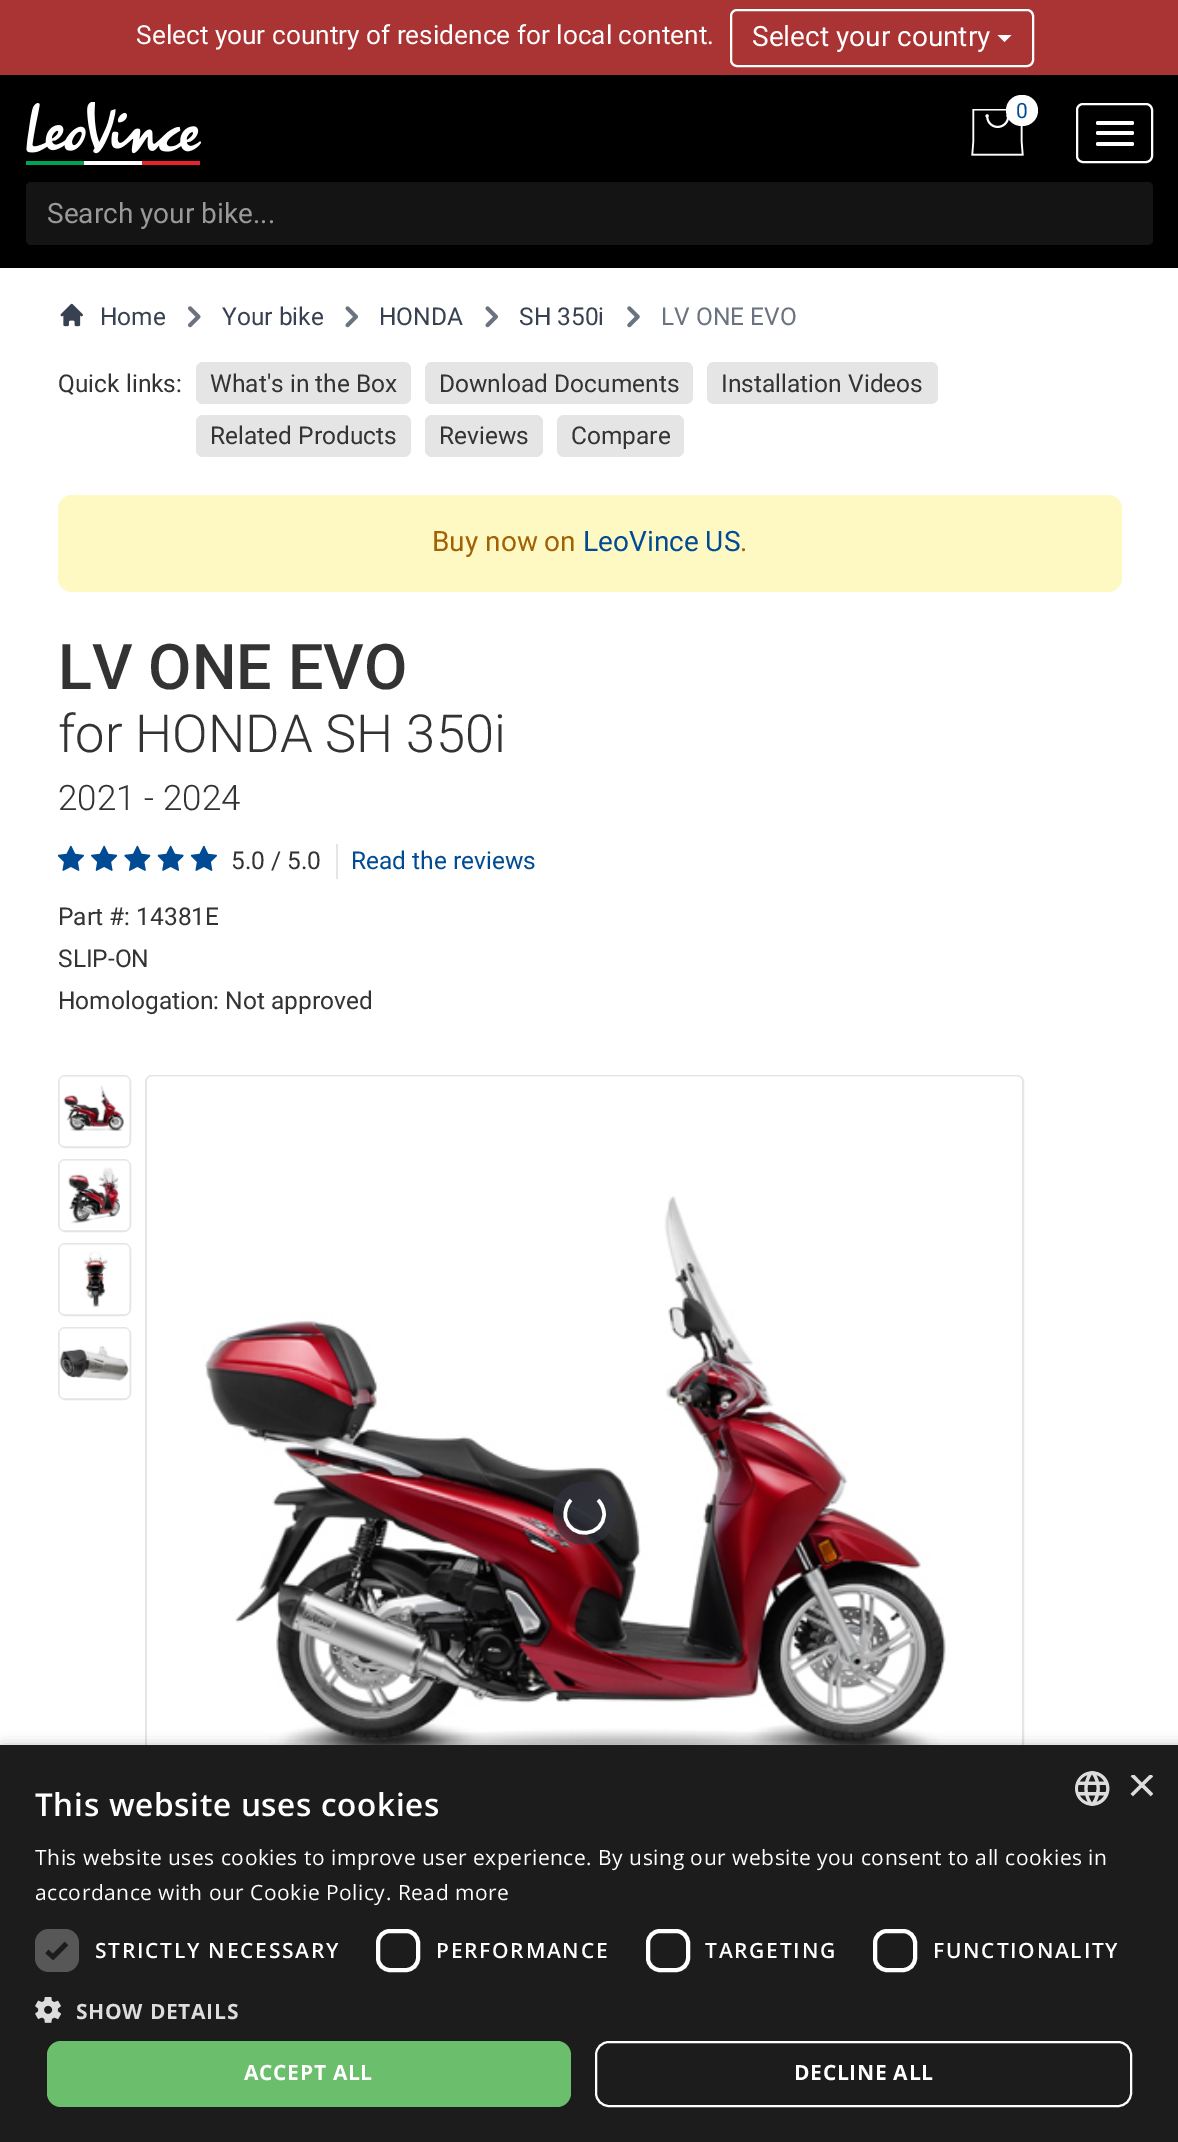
%!PS
<< /PageSize [1178 2142] /PageUsesTransparency true >> setpagedevice
/rgb { 3 { 255 div 3 1 roll } repeat setrgbcolor } def
/font { [ exch dup neg 0 0 3 -1 roll 0 0 ] selectfont } def
/alpha { dup .setfillconstantalpha .setstrokeconstantalpha } def
/circle { newpath 0 360 arc closepath } def
/roundrect { 5 dict begin { /r /h /w /y /x } { exch def } forall
  x r add y moveto x w add y 2 copy h add r arct x w add y h add x 1 index r arct
  x y h add x y r arct x y 2 copy exch w add exch r arct closepath end } def
/shadow { 12 dict begin { /a /b /q /h /w /y /x } { exch def } forall gsave /was 0 def
  9 -2 -9 { dup b mul 4 div /e exch def 1 sub .425 mul 2.718 exch exp 1 add a .99 .min exch div /now exch def
    1 1 now sub 1 was sub div sub alpha /was now def
    w h .min e 2 mul add 0 gt { x e sub y e sub w e 2 mul add h e 2 mul add
      q e add b .6 mul add w h .min 2 div e add .min 0 .max roundrect fill } if } for grestore end } def
/picture { 5 dict begin { /h /w /y /x /name } { exch def } forall
  gsave x y translate w h scale
  w h 8 [w 0 0 h 0 0] name (r) file false 3 colorimage grestore end } def
0 .pushpdf14devicefilter
0 2142 translate 1 -1 scale
4 setmiterlimit
255 255 255 rgb
0 0 1178 2142 rectfill
170 51 51 rgb
0 0 1178 75 rectfill
255 255 255 rgb
2 setlinewidth
731 10 302 56 6 roundrect stroke
997.5 35 moveto 1011.5 35 lineto 1004.5 42 lineto closepath fill
0 0 0 rgb
0 75 1178 193 rectfill
(img/1.rgb) 26 102 175 63 picture
(img/2.rgb) 971 109 53 47 picture
255 255 255 rgb
1006 95 32 31 15.5 roundrect fill
1077 104 75 58 6 roundrect stroke
1096 121 38 4 2 roundrect fill
1096 131 38 4 2 roundrect fill
1096 142 38 4 2 roundrect fill
20 20 20 rgb
26 182 1127 63 5 roundrect fill
(img/3.rgb) 60 303 23 24 picture
(img/4.rgb) 188 306 13 22 picture
(img/5.rgb) 345 306 13 22 picture
(img/5.rgb) 485 306 13 22 picture
(img/6.rgb) 627 306 13 22 picture
229 229 229 rgb
196 362 215 42 7 roundrect fill
425 362 268 42 7 roundrect fill
707 362 231 42 7 roundrect fill
196 415 215 42 7 roundrect fill
425 415 118 42 7 roundrect fill
557 415 127 42 7 roundrect fill
254 249 195 rgb
58 495 1064 97 14 roundrect fill
(img/7.rgb) 57 845 27 26 picture
(img/8.rgb) 91 845 27 26 picture
(img/9.rgb) 124 845 27 26 picture
(img/10.rgb) 157 845 27 26 picture
(img/11.rgb) 190 845 27 26 picture
229 229 229 rgb
336 844 2 35 rectfill
59 1076 71 71 6 roundrect stroke
(img/12.rgb) 59 1076 71 71 picture
59 1160 71 71 6 roundrect stroke
(img/13.rgb) 59 1160 71 71 picture
59 1244 71 71 6 roundrect stroke
(img/14.rgb) 59 1244 71 71 picture
59 1328 71 71 6 roundrect stroke
(img/15.rgb) 59 1328 71 71 picture
146 1076 877 876 6 roundrect stroke
(img/16.rgb) 147 1076 875 669 picture
0.7 alpha
49 51 61 rgb
584.5 1513.5 31.5 circle fill
1 alpha
255 255 255 rgb
3.5 setlinewidth
598 1500 moveto 601.5 1503.5 604 1508.5 604 1514 curveto 604 1537 570 1540 565.5 1517.5 curveto 564.5 1511.5 566.5 1504.5 571 1500 curveto stroke
0 0 0 rgb
2 1748 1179 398 0 7 0.35 shadow
28 28 28 rgb
0 1745 1178 397 rectfill
(img/17.rgb) 1075 1771 35 35 picture
87 87 87 rgb
35 1929 44 43 14 roundrect fill
28 28 28 rgb
4.6 setlinewidth
47 1951.5 moveto 53 1957 lineto 66.5 1943.5 lineto stroke
255 255 255 rgb
4 setlinewidth
378 1931 40 39 12 roundrect stroke
648 1931 40 39 12 roundrect stroke
875 1931 40 39 12 roundrect stroke
(img/18.rgb) 35 1997 26 26 picture
107 190 107 rgb
47 2041 524 66 14 roundrect fill
255 255 255 rgb
2 setlinewidth
596 2042 535 64 13 roundrect stroke
/Roboto-Regular 26.25 font
136 44 moveto (Select your country of residence for local content.) show
/Roboto-Regular 28 font
752 46 moveto (Select your country) show
/Roboto-Regular 21 font
0 75 147 rgb
1016 118 moveto (0) show
/Roboto-Regular 28 font
153 153 153 rgb
47 223 moveto (Search your bike...) show
/Roboto-Regular 24.5 font
55 65 81 rgb
[
  [(Home) 100 325]
  [(Your bike) 222 325]
  [(HONDA) 379 325]
  [(SH 350i) 519 325]
] { aload pop moveto show } forall
107 114 128 rgb
661 325 moveto (LV ONE EVO) show
51 51 51 rgb
[
  [(Quick links:) 58 392]
  [(What's in the Box) 210 392]
  [(Download Documents) 439 392]
  [(Installation Videos) 721 392]
  [(Related Products) 210 444]
  [(Reviews) 439 444]
  [(Compare) 571 444]
] { aload pop moveto show } forall
/Roboto-Regular 28 font
161 98 7 rgb
432 551 moveto (Buy now on) show
0 75 147 rgb
583 551 moveto (LeoVince US) show
161 98 7 rgb
740 551 moveto (.) show
/Roboto-Medium 63 font
51 51 51 rgb
58 689 moveto (LV ONE EVO) show
/Roboto-Light 52.5 font
58 752 moveto (for HONDA SH 350i) show
/Roboto-Light 35 font
58 810 moveto (2021 - 2024) show
/Roboto-Regular 24.5 font
231 869 moveto (5.0 / 5.0) show
0 75 147 rgb
351 869 moveto (Read the reviews) show
51 51 51 rgb
[
  [(Part #: 14381E) 58 925]
  [(SLIP-ON) 58 967]
  [(Homologation: Not approved) 58 1009]
] { aload pop moveto show } forall
gsave
1127 1775 26 26 rectclip
/LiberationSans-Regular 51 font
221 221 221 rgb
1127 1802 moveto (×) show
grestore
/OpenSans-SemiBold 31.5 font
255 255 255 rgb
35 1816 moveto 0.7 0 (This website uses cookies) ashow
/OpenSans-Regular 21 font
35 1865 moveto 0.53 0 (This website uses cookies to improve user experience. By using our website you consent to all cookies in) ashow
35 1900 moveto 0.53 0 (accordance with our Cookie Policy. Read more) ashow
/OpenSans-SemiBold 21 font
95 1958 moveto 1.75 0 (STRICTLY NECESSARY) ashow
436 1958 moveto 1.75 0 (PERFORMANCE) ashow
705 1958 moveto 1.75 0 (TARGETING) ashow
933 1958 moveto 1.75 0 (FUNCTIONALITY) ashow
/OpenSans-Bold 21 font
221 221 221 rgb
76 2019 moveto 0.7 0 (SHOW DETAILS) ashow
255 255 255 rgb
244 2080 moveto 0.7 0 (ACCEPT ALL) ashow
794 2080 moveto 0.7 0 (DECLINE ALL) ashow
.poppdf14devicefilter showpage
